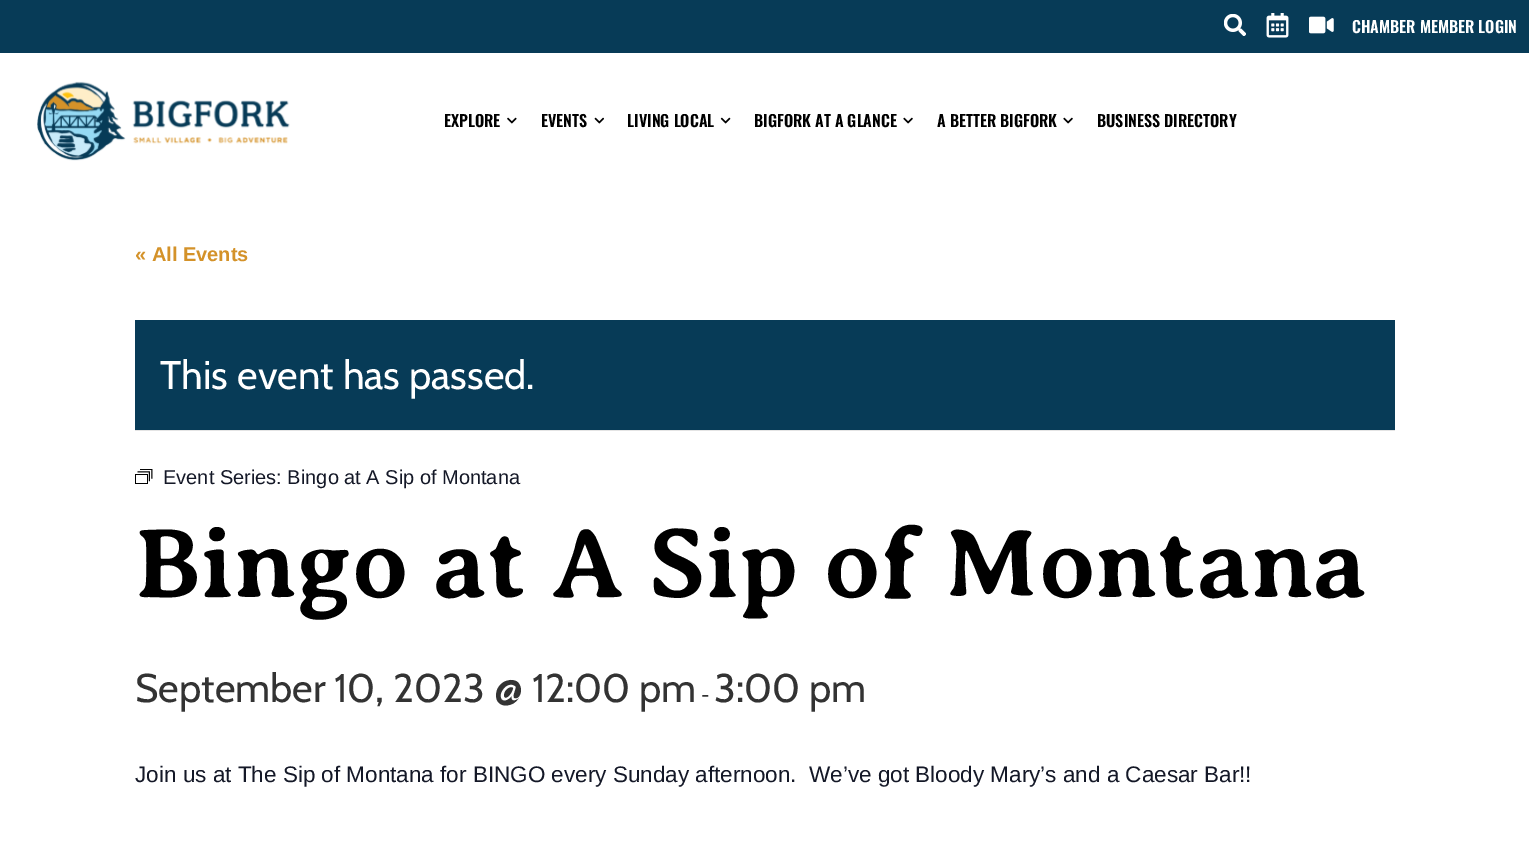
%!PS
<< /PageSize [1529 862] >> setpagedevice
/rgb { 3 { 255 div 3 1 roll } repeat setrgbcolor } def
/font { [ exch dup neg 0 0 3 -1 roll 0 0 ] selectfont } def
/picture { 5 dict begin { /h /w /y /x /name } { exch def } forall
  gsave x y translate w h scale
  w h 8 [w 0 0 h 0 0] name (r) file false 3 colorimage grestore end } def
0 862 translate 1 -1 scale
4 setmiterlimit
255 255 255 rgb
0 0 1529 862 rectfill
7 59 87 rgb
0 0 1529 53 rectfill
(img/1.rgb) 1224 14 22 22 picture
(img/2.rgb) 1266 13 23 25 picture
(img/3.rgb) 1309 16 25 18 picture
(img/4.rgb) 37 81 253 80 picture
(img/5.rgb) 507 117 10 7 picture
(img/6.rgb) 594 117 10 7 picture
(img/7.rgb) 720 117 11 7 picture
(img/8.rgb) 903 117 10 7 picture
(img/8.rgb) 1063 117 10 7 picture
135 320 1260 110 rectfill
228 228 228 rgb
135 430 1260 1 rectfill
(img/9.rgb) 135 469 18 15 picture
/Oswald-SemiBold 16 font
255 255 255 rgb
1352 33 moveto (CHAMBER MEMBER LOGIN) show
0 0 0 rgb
[
  [(EXPLORE) 444 127]
  [(EVENTS) 541 127]
  [(LIVING LOCAL) 627 127]
  [(BIGFORK AT A GLANCE) 754 127]
  [(A BETTER BIGFORK) 937 127]
  [(BUSINESS DIRECTORY) 1097 127]
] { aload pop moveto show } forall
/LiberationSans-Bold 20 font
212 146 41 rgb
135 261 moveto (« All Events) show
/Cabin-Regular 40 font
255 255 255 rgb
160 389 moveto (This event has passed.) show
/LiberationSans-Regular 20 font
20 24 39 rgb
163 484 moveto (Event Series: Bingo at A Sip of Montana) show
/AveriaSerifLibre-Bold 100 font
0 0 0 rgb
135 597 moveto (Bingo at A Sip of Montana) show
/Cabin-Regular 40 font
51 51 51 rgb
135 702 moveto (September 10, 2023 @ 12:00 pm) show
/Cabin-Regular 20 font
701 702 moveto (-) show
/Cabin-Regular 40 font
714 702 moveto (3:00 pm) show
/LiberationSans-Regular 22.5 font
20 24 39 rgb
135 782 moveto (Join us at The Sip of Montana for BINGO every Sunday afternoon.  We’ve got Bloody Mary’s and a Caesar Bar!!) show
showpage
